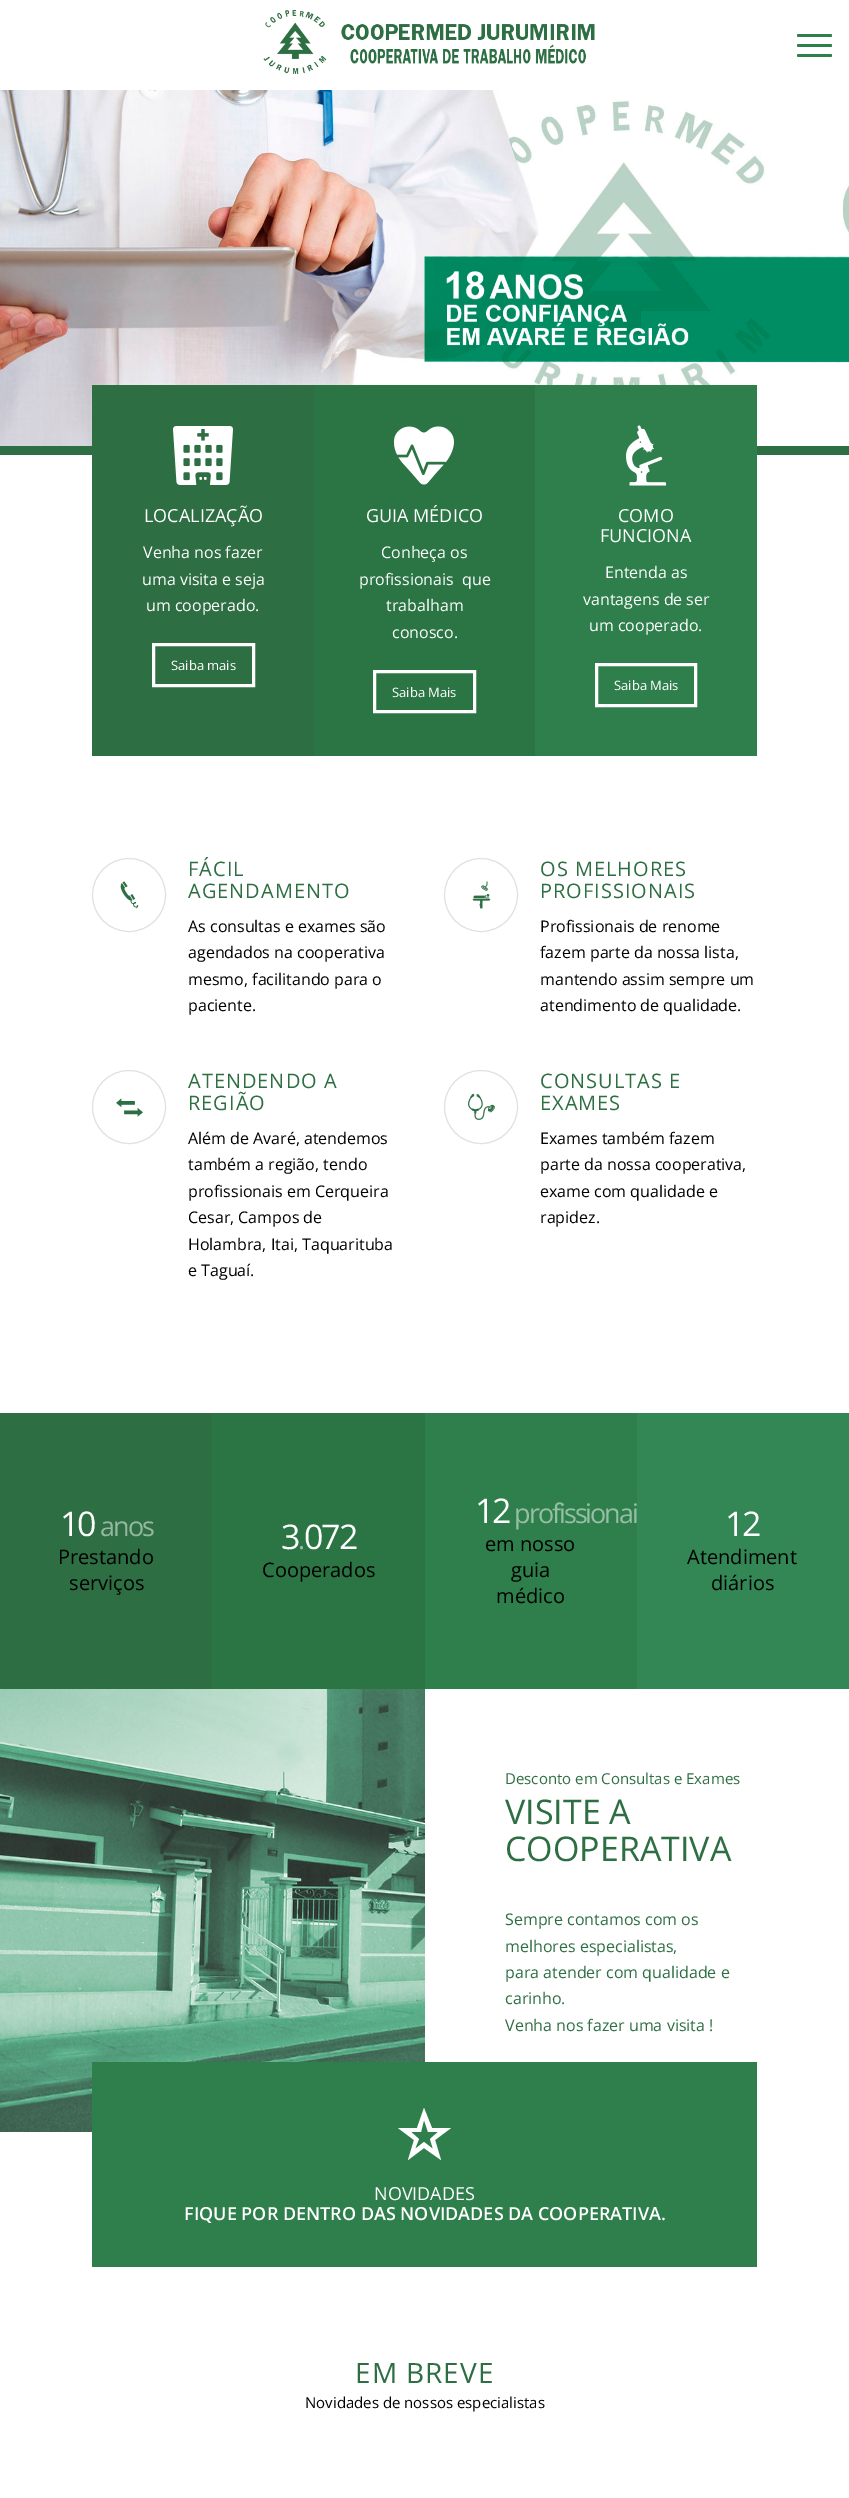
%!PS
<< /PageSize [849 2498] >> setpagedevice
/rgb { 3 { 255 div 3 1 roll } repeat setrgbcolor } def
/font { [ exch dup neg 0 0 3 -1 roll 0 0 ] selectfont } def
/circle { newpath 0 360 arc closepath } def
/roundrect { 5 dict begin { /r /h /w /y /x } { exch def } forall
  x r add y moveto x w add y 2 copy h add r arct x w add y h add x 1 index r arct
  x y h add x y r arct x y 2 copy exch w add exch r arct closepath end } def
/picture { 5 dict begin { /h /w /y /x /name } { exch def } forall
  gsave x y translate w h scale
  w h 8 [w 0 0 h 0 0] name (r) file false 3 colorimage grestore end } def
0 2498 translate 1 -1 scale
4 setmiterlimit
255 255 255 rgb
0 0 849 2498 rectfill
(img/1.rgb) 263 10 332 64 picture
47 127 76 rgb
797 44 35 3 1.5 roundrect fill
797 34 35 3 1.5 roundrect fill
797 54 35 3 1.5 roundrect fill
(img/2.rgb) 0 90 849 356 picture
[
  [0 446 92 9 45 110 67]
  [757 446 92 9 45 110 67]
  [92 385 222 371 45 110 67]
] { aload pop rgb rectfill } forall
(img/3.rgb) 173 426 60 59 picture
255 255 255 rgb
3 setlinewidth
153.5 644.5 100 41 rectstroke
43 117 68 rgb
314 385 221 371 rectfill
(img/4.rgb) 394 426 60 59 picture
255 255 255 rgb
374.5 671.5 100 40 rectstroke
47 127 76 rgb
535 385 222 371 rectfill
(img/5.rgb) 626 425 41 61 picture
255 255 255 rgb
596.5 664.5 99 41 rectstroke
225 225 225 rgb
1 setlinewidth
129 895 36.5 circle stroke
(img/6.rgb) 120 881 19 28 picture
481 895 36.5 circle stroke
(img/7.rgb) 472 881 19 28 picture
129 1107 36.5 circle stroke
(img/8.rgb) 116 1098 27 19 picture
481 1107 36.5 circle stroke
(img/9.rgb) 468 1093 27 27 picture
[
  [0 1413 212 276 45 110 67]
  [212 1413 213 276 43 117 68]
  [425 1413 212 276 47 127 76]
  [637 1413 212 276 50 135 84]
] { aload pop rgb rectfill } forall
(img/10.rgb) 0 1689 425 443 picture
47 127 76 rgb
92 2062 665 205 rectfill
255 255 255 rgb
451 2128 moveto 435 2140 lineto 441 2160 lineto 424 2148 lineto 408 2160 lineto 414 2140 lineto 398 2128 lineto 417 2128 lineto 424 2108 lineto 432 2128 lineto closepath 424 2142 moveto 433 2149 lineto 430 2139 lineto 438 2132 lineto 428 2132 lineto 424 2120 lineto 421 2132 lineto 411 2132 lineto 419 2139 lineto 415 2149 lineto closepath fill
/OpenSans-Regular 18 font
144 522 moveto (LOCALIZAÇÃO) show
/OpenSans-Regular 16 font
[
  [(Venha nos fazer) 143 558]
  [(uma visita e seja) 142 585]
  [(um cooperado.) 146 611]
] { aload pop moveto show } forall
/OpenSans-Regular 13 font
171 670 moveto (Saiba mais) show
/OpenSans-Regular 18 font
366 522 moveto (GUIA MÉDICO) show
/OpenSans-Regular 16 font
[
  [(Conheça os) 381 558]
  [(profissionais  que) 359 585]
  [(trabalham) 386 611]
  [(conosco.) 392 638]
] { aload pop moveto show } forall
/OpenSans-Regular 13 font
392 697 moveto (Saiba Mais) show
/OpenSans-Regular 18 font
618 522 moveto (COMO) show
600 542 moveto (FUNCIONA) show
/OpenSans-Regular 16 font
[
  [(Entenda as) 605 578]
  [(vantagens de ser) 583 605]
  [(um cooperado.) 589 631]
] { aload pop moveto show } forall
/OpenSans-Regular 13 font
614 690 moveto (Saiba Mais) show
/OpenSans-Regular 20 font
45 110 67 rgb
188 876 moveto 1 0 (FÁCIL) ashow
188 898 moveto 1 0 (AGENDAMENTO) ashow
/OpenSans-Regular 16 font
0 0 0 rgb
[
  [(As consultas e exames são) 188 932]
  [(agendados na cooperativa) 188 958]
  [(mesmo, facilitando para o) 188 985]
  [(paciente.) 188 1011]
] { aload pop moveto show } forall
/OpenSans-Regular 20 font
45 110 67 rgb
540 876 moveto 1 0 (OS MELHORES) ashow
540 898 moveto 1 0 (PROFISSIONAIS) ashow
/OpenSans-Regular 16 font
0 0 0 rgb
[
  [(Profissionais de renome) 540 932]
  [(fazem parte da nossa lista,) 540 958]
  [(mantendo assim sempre um) 540 985]
  [(atendimento de qualidade.) 540 1011]
] { aload pop moveto show } forall
/OpenSans-Regular 20 font
45 110 67 rgb
188 1088 moveto 1 0 (ATENDENDO A) ashow
188 1110 moveto 1 0 (REGIÃO) ashow
/OpenSans-Regular 16 font
0 0 0 rgb
[
  [(Além de Avaré, atendemos) 188 1144]
  [(também a região, tendo) 188 1170]
  [(profissionais em Cerqueira) 188 1197]
  [(Cesar, Campos de) 188 1223]
  [(Holambra, Itai, Taquarituba) 188 1250]
  [(e Taguaí.) 188 1276]
] { aload pop moveto show } forall
/OpenSans-Regular 20 font
45 110 67 rgb
540 1088 moveto 1 0 (CONSULTAS E) ashow
540 1110 moveto 1 0 (EXAMES) ashow
/OpenSans-Regular 16 font
0 0 0 rgb
[
  [(Exames também fazem) 540 1144]
  [(parte da nossa cooperativa,) 540 1170]
  [(exame com qualidade e) 540 1197]
  [(rapidez.) 540 1223]
] { aload pop moveto show } forall
/OpenSans-Regular 34 font
255 255 255 rgb
60 1536 moveto -2 0 (10) ashow
/OpenSans-Regular 27 font
150 183 161 rgb
100 1536 moveto -2 0 (anos) ashow
/OpenSans-Regular 20 font
0 0 0 rgb
58 1564 moveto (Prestando) show
69 1590 moveto (serviços) show
/OpenSans-Regular 34 font
255 255 255 rgb
281 1549 moveto -2 0 (3) ashow
/OpenSans-Regular 27 font
150 183 161 rgb
298 1549 moveto -2 0 (.) ashow
/OpenSans-Regular 34 font
255 255 255 rgb
304 1549 moveto -2 0 (072) ashow
/OpenSans-Regular 20 font
0 0 0 rgb
262 1577 moveto (Cooperados) show
/OpenSans-Regular 34 font
255 255 255 rgb
475 1523 moveto -2 0 (12) ashow
gsave
425 1413 212 276 rectclip
/OpenSans-Regular 27 font
151 191 166 rgb
514 1523 moveto -2 0 (profissionai) ashow
grestore
/OpenSans-Regular 20 font
0 0 0 rgb
[
  [(em nosso) 485 1551]
  [(guia) 511 1577]
  [(médico) 496 1603]
] { aload pop moveto show } forall
/OpenSans-Regular 34 font
255 255 255 rgb
725 1536 moveto -2 0 (12) ashow
/OpenSans-Regular 20 font
0 0 0 rgb
687 1564 moveto (Atendiment) show
711 1590 moveto (diários) show
/OpenSans-Regular 15 font
45 110 67 rgb
505 1784 moveto (Desconto em Consultas e Exames) show
/OpenSans-Regular 34 font
505 1824 moveto (VISITE A) show
505 1861 moveto (COOPERATIVA) show
/OpenSans-Regular 16 font
[
  [(Sempre contamos com os) 505 1925]
  [(melhores especialistas,) 505 1952]
  [(para atender com qualidade e) 505 1978]
  [(carinho.) 505 2004]
  [(Venha nos fazer uma visita !) 505 2031]
] { aload pop moveto show } forall
/OpenSans-Regular 18 font
255 255 255 rgb
374 2200 moveto (NOVIDADES) show
/OpenSans-SemiBold 18 font
184 2220 moveto (FIQUE POR DENTRO DAS NOVIDADES DA COOPERATIVA.) show
/OpenSans-Regular 28 font
45 110 67 rgb
355 2383 moveto 1 0 (EM BREVE) ashow
/OpenSans-Regular 15 font
0 0 0 rgb
305 2408 moveto (Novidades de nossos especialistas) show
showpage
